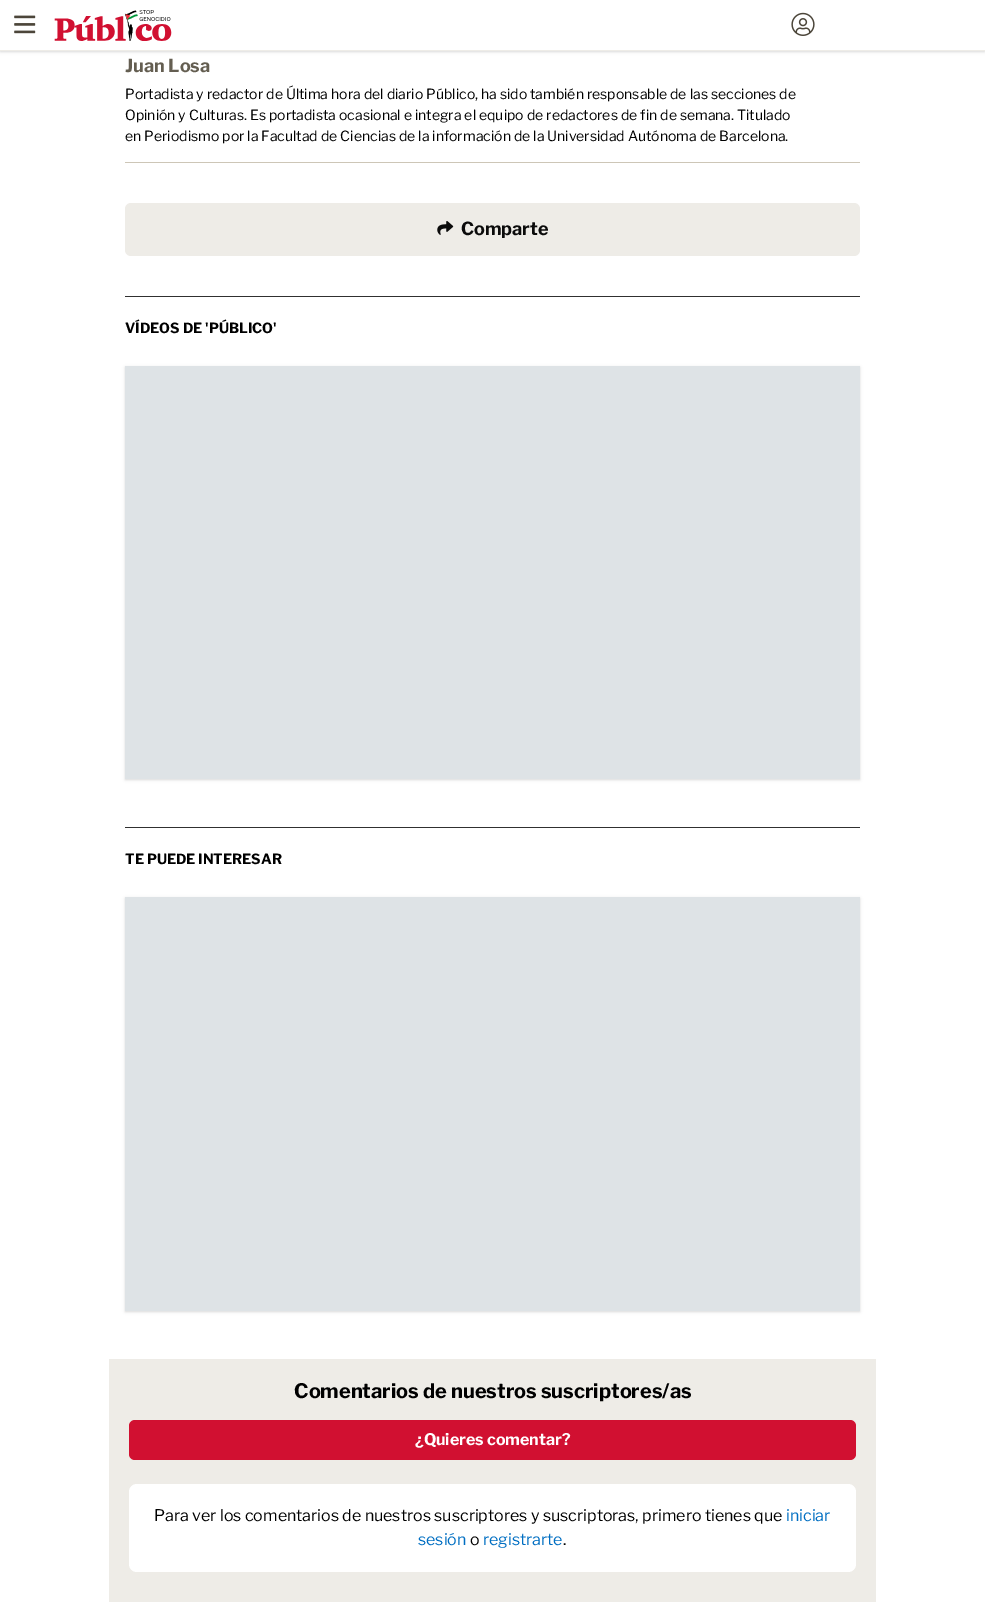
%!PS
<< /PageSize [985 1602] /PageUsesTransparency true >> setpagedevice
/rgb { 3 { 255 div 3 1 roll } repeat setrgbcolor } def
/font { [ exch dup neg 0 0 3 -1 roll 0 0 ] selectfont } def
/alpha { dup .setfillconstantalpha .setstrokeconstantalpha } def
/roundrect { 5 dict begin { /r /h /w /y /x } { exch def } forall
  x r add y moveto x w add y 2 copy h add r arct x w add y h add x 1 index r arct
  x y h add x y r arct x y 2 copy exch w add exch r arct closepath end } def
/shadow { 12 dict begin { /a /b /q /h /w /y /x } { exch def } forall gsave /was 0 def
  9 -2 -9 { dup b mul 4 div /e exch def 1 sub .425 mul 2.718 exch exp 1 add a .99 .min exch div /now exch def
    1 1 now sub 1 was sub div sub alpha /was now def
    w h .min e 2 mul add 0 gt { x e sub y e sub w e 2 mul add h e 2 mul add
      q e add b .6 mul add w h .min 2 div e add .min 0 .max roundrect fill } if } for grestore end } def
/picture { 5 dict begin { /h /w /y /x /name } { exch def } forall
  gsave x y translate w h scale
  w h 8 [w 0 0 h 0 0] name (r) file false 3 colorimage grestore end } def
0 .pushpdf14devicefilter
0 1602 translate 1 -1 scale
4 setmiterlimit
255 255 255 rgb
0 0 985 1602 rectfill
0 0 0 rgb
1 2 983 49 0 1 0.1 shadow
0 1 985 51 0 1.5 0.1 shadow
255 255 255 rgb
0 0 985 50 rectfill
238 236 231 rgb
0 50 985 1 rectfill
(img/1.rgb) 14 15 22 19 picture
(img/2.rgb) 54 10 118 31 picture
(img/3.rgb) 791 12 24 24 picture
205 198 183 rgb
125 162 735 1 rectfill
238 236 231 rgb
125 203 735 53 6 roundrect fill
(img/4.rgb) 437 221 17 14 picture
48 48 48 rgb
125 296 735 1 rectfill
0 0 0 rgb
126 368 733 411 0 1 0.1 shadow
125 367 735 413 0 1.5 0.1 shadow
222 227 230 rgb
125 366 735 413 rectfill
48 48 48 rgb
125 827 735 1 rectfill
0 0 0 rgb
126 899 733 412 0 1 0.1 shadow
125 898 735 414 0 1.5 0.1 shadow
222 227 230 rgb
125 897 735 414 rectfill
238 236 231 rgb
109 1359 767 243 rectfill
209 16 49 rgb
129 1420 727 40 6 roundrect fill
255 255 255 rgb
129 1484 727 88 8 roundrect fill
/LibreFranklin-Bold 18 font
100 94 81 rgb
125 72 moveto (Juan Losa) show
/LibreFranklin-Regular 14 font
0 0 0 rgb
[
  [(Portadista y redactor de Última hora del diario Público, ha sido también responsable de las secciones de) 125 99]
  [(Opinión y Culturas. Es portadista ocasional e integra el equipo de redactores de fin de semana. Titulado) 125 120]
  [(en Periodismo por la Facultad de Ciencias de la información de la Universidad Autónoma de Barcelona.) 125 141]
] { aload pop moveto show } forall
/LibreFranklin-Bold 18 font
11 11 11 rgb
461 235 moveto (Comparte) show
/LibreFranklin-Bold 14 font
0 0 0 rgb
125 333 moveto (VÍDEOS DE 'PÚBLICO') show
125 864 moveto (TE PUEDE INTERESAR) show
/LibreFranklin-Bold 20 font
294 1398 moveto (Comentarios de nuestros suscriptores/as) show
/LibreFranklin-Bold 16 font
255 255 255 rgb
415 1445 moveto (¿Quieres comentar?) show
/LibreFranklin-Regular 16 font
0 0 0 rgb
154 1521 moveto (Para ver los comentarios de nuestros suscriptores y suscriptoras, primero tienes que) show
0 110 194 rgb
786 1521 moveto (iniciar) show
418 1545 moveto (sesión) show
0 0 0 rgb
470 1545 moveto (o) show
0 110 194 rgb
483 1545 moveto (registrarte) show
0 0 0 rgb
563 1545 moveto (.) show
.poppdf14devicefilter showpage
